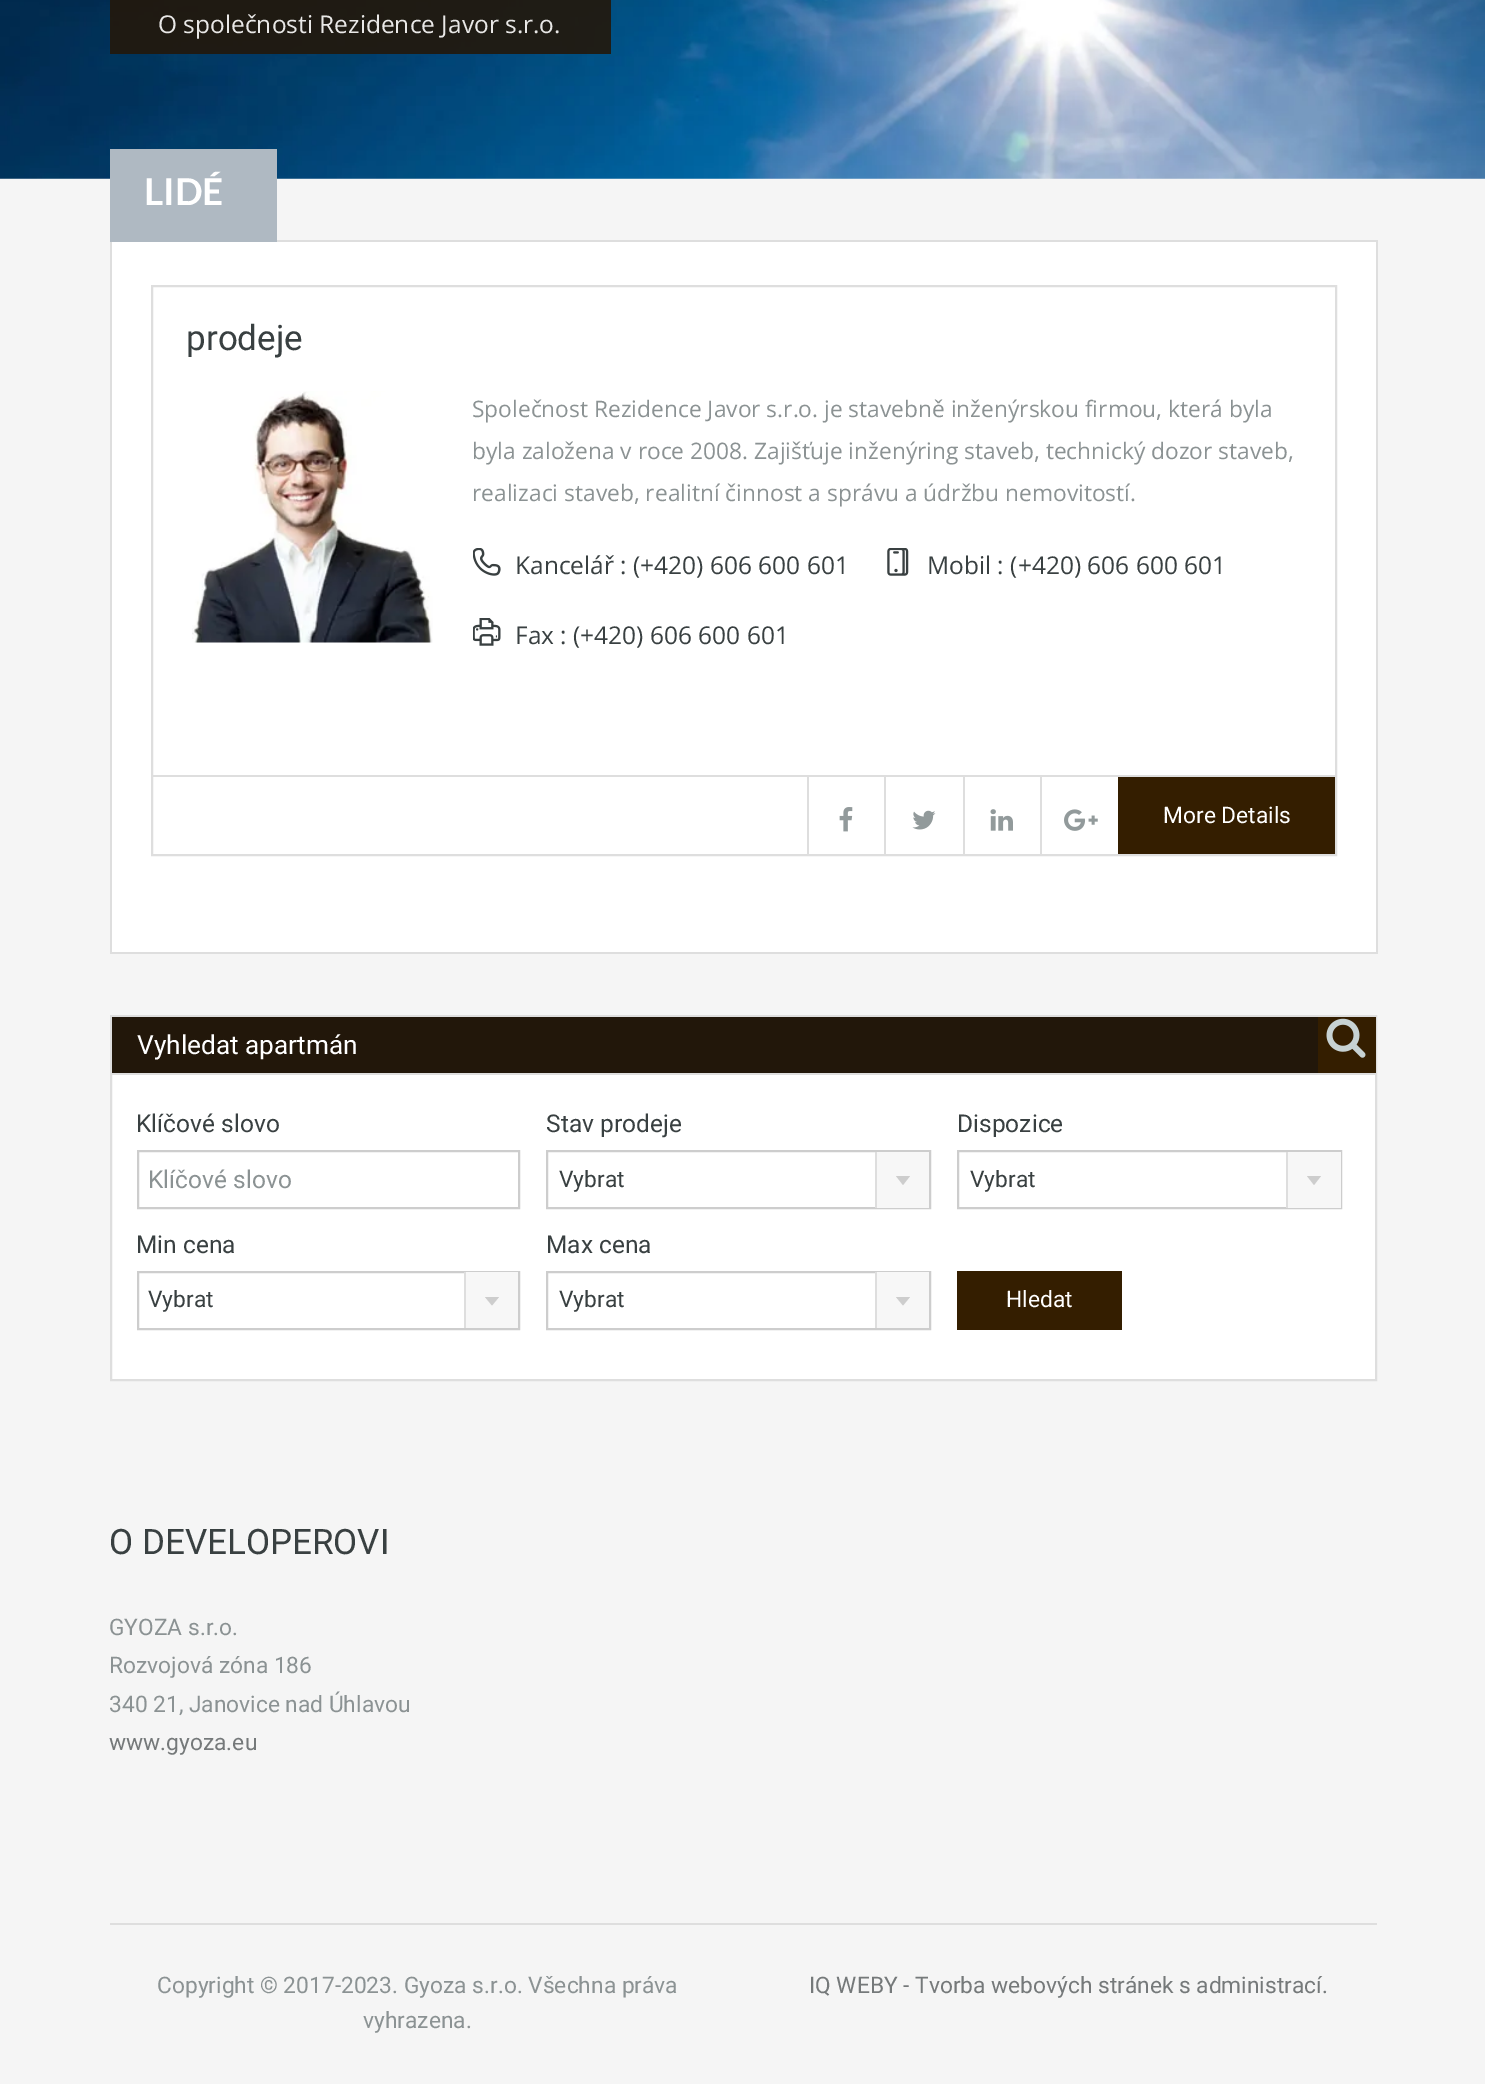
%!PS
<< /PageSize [1485 2084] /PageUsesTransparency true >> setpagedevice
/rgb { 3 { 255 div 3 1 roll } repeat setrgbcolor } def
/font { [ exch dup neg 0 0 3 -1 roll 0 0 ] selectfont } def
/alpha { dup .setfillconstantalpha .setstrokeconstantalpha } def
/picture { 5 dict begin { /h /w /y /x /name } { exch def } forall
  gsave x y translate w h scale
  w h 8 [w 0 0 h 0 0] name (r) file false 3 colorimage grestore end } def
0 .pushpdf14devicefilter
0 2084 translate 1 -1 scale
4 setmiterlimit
245 245 245 rgb
0 0 1485 2084 rectfill
(img/1.rgb) 0 0 1485 179 picture
0.9 alpha
[
  [110 0 501 54 34 23 10]
] { aload pop rgb rectfill } forall
1 alpha
[
  [1376 240 2 714 222 222 222]
  [110 240 2 714 222 222 222]
  [112 242 1264 710 255 255 255]
  [277 240 1099 2 222 222 222]
  [112 952 1264 2 222 222 222]
  [110 149 167 93 175 185 194]
] { aload pop rgb rectfill } forall
222 222 222 rgb
2 setlinewidth
152 286 1184 569 rectstroke
(img/2.rgb) 192 391 241 252 picture
(img/3.rgb) 473 548 28 28 picture
(img/4.rgb) 887 548 22 28 picture
(img/5.rgb) 473 618 28 28 picture
152 775 1183 2 rectfill
807 777 2 77 rectfill
(img/6.rgb) 839 807 14 25 picture
884 777 2 77 rectfill
(img/7.rgb) 912 810 24 20 picture
963 777 2 77 rectfill
(img/8.rgb) 990 809 23 22 picture
1040 777 2 77 rectfill
(img/9.rgb) 1064 809 34 22 picture
52 30 0 rgb
1118 777 217 77 rectfill
255 255 255 rgb
112 1075 1263 304 rectfill
222 222 222 rgb
111 1016 1265 364 rectstroke
[
  [112 1017 1206 56 34 23 10]
  [112 1073 1264 2 222 222 222]
  [1318 1017 58 56 52 30 0]
] { aload pop rgb rectfill } forall
(img/10.rgb) 1326 1018 40 40 picture
205 205 205 rgb
138 1151 381 57 rectstroke
547 1151 383 57 rectstroke
247 247 247 rgb
877 1152 52 56 rectfill
222 222 222 rgb
875 1152 2 56 rectfill
205 205 205 rgb
896 1176 moveto 910 1176 lineto 903 1185 lineto closepath fill
958 1151 383 57 rectstroke
247 247 247 rgb
1288 1152 53 56 rectfill
222 222 222 rgb
1286 1152 2 56 rectfill
205 205 205 rgb
1307 1176 moveto 1321 1176 lineto 1314 1185 lineto closepath fill
138 1272 381 57 rectstroke
247 247 247 rgb
466 1272 52 56 rectfill
222 222 222 rgb
464 1272 2 56 rectfill
205 205 205 rgb
485 1297 moveto 499 1297 lineto 492 1305.5 lineto closepath fill
547 1272 383 57 rectstroke
247 247 247 rgb
877 1272 52 56 rectfill
222 222 222 rgb
875 1272 2 56 rectfill
205 205 205 rgb
896 1297 moveto 910 1297 lineto 903 1305.5 lineto closepath fill
52 30 0 rgb
957 1271 165 59 rectfill
222 222 222 rgb
110 1923 1267 2 rectfill
/OpenSans-Regular 24.5 font
233 232 231 rgb
158 33 moveto (O společnosti Rezidence Javor s.r.o.) show
/Lato-Bold 37 font
255 255 255 rgb
144 205 moveto (LIDÉ) show
/Roboto-Regular 35 font
57 64 65 rgb
186 350 moveto (prodeje) show
/OpenSans-Regular 22.75 font
139 146 147 rgb
[
  [(Společnost Rezidence Javor s.r.o. je stavebně inženýrskou firmou, která byla) 472 417]
  [(byla založena v roce 2008. Zajišťuje inženýring staveb, technický dozor staveb,) 472 459]
  [(realizaci staveb, realitní činnost a správu a údržbu nemovitostí.) 472 501]
] { aload pop moveto show } forall
/OpenSans-Regular 24.5 font
57 64 65 rgb
[
  [(Kancelář : \(+420\) 606 600 601) 515 574]
  [(Mobil : \(+420\) 606 600 601) 927 574]
  [(Fax : \(+420\) 606 600 601) 515 644]
] { aload pop moveto show } forall
/Roboto-Regular 22.75 font
255 255 255 rgb
1163 823 moveto (More Details) show
/Roboto-Regular 26.25 font
137 1054 moveto (Vyhledat apartmán) show
/Roboto-Regular 24.5 font
57 64 65 rgb
136 1132 moveto (Klíčové slovo) show
139 146 147 rgb
148 1188 moveto (Klíčové slovo) show
57 64 65 rgb
546 1132 moveto (Stav prodeje) show
/Roboto-Regular 22.75 font
559 1187 moveto (Vybrat) show
/Roboto-Regular 24.5 font
957 1132 moveto (Dispozice) show
/Roboto-Regular 22.75 font
970 1187 moveto (Vybrat) show
/Roboto-Regular 24.5 font
136 1253 moveto (Min cena) show
/Roboto-Regular 22.75 font
148 1307 moveto (Vybrat) show
/Roboto-Regular 24.5 font
546 1253 moveto (Max cena) show
/Roboto-Regular 22.75 font
559 1307 moveto (Vybrat) show
255 255 255 rgb
1006 1307 moveto (Hledat) show
/Roboto-Regular 35 font
57 64 65 rgb
109 1554 moveto (O DEVELOPEROVI) show
/Roboto-Regular 22.75 font
139 146 147 rgb
[
  [(GYOZA s.r.o.) 109 1635]
  [(Rozvojová zóna 186) 109 1673]
  [(340 21, Janovice nad Úhlavou) 109 1712]
] { aload pop moveto show } forall
117 121 122 rgb
109 1750 moveto (www.gyoza.eu) show
139 146 147 rgb
157 1993 moveto (Copyright © 2017-2023. Gyoza s.r.o. Všechna práva) show
363 2028 moveto (vyhrazena.) show
117 121 122 rgb
809 1993 moveto (IQ WEBY - Tvorba webových stránek s administrací.) show
.poppdf14devicefilter showpage
